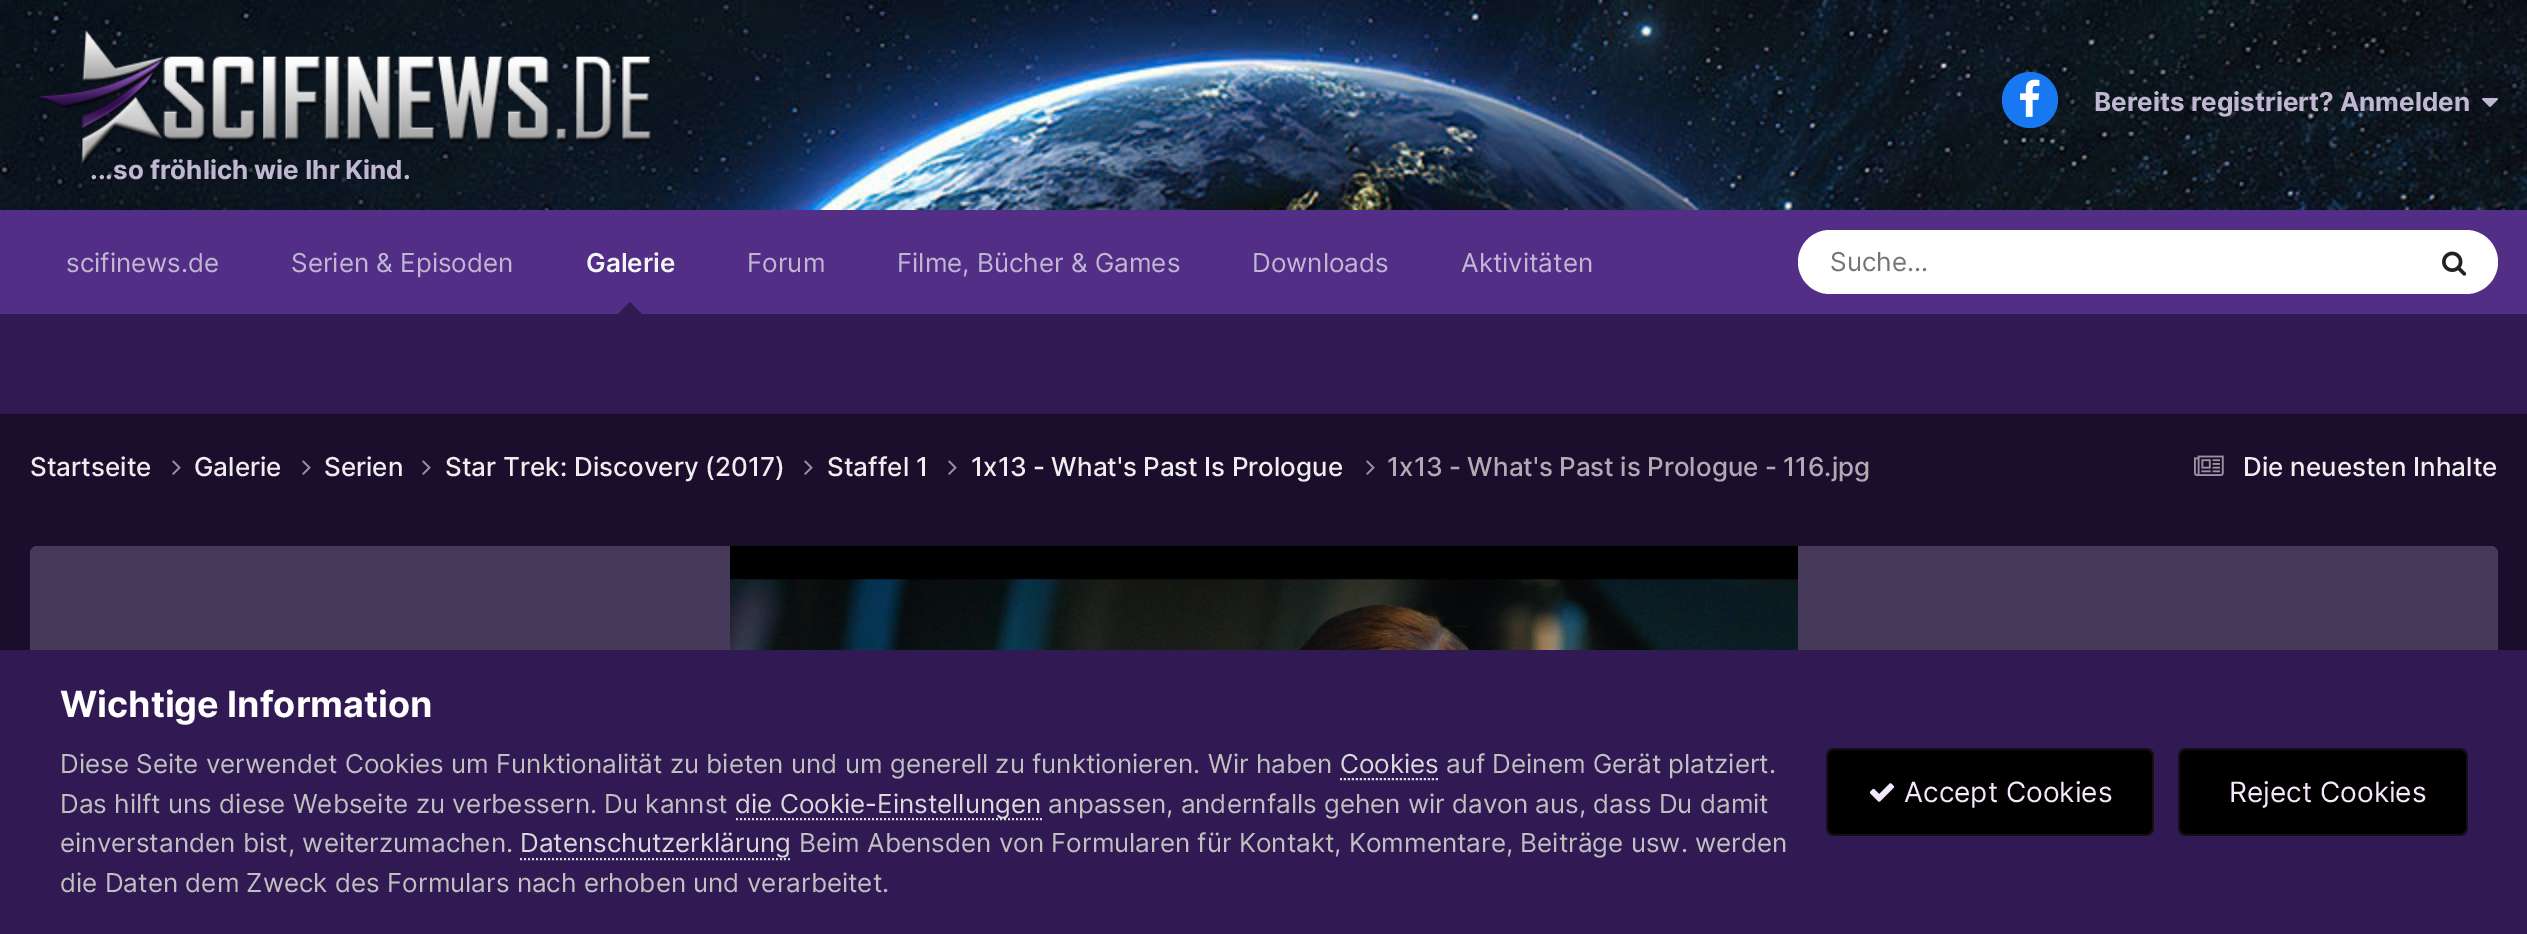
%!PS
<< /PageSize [2527 934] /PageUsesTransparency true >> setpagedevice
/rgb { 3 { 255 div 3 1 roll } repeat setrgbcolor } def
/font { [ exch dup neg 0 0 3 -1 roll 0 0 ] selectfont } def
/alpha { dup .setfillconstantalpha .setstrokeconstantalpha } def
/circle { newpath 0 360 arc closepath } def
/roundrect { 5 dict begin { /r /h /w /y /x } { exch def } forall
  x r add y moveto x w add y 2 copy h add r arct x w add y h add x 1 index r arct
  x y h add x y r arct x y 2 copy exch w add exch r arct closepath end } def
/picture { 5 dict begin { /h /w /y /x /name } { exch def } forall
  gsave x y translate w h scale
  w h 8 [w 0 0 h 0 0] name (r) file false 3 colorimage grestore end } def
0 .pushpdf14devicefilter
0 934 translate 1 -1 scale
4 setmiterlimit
27 14 45 rgb
0 0 2527 934 rectfill
(img/1.rgb) 0 0 2527 210 picture
(img/2.rgb) 39 30 614 134 picture
23 120 242 rgb
2030 100 28 circle fill
(img/3.rgb) 2020 79 20 38 picture
(img/4.rgb) 2482 98 16 9 picture
82 46 135 rgb
0 210 2527 104 rectfill
49 25 83 rgb
642 314 moveto 618 314 lineto 630 302 lineto closepath fill
255 255 255 rgb
1798 230 700 64 32 roundrect fill
(img/5.rgb) 2442 251 25 25 picture
49 25 83 rgb
0 314 2527 100 rectfill
(img/6.rgb) 172 460 9 15 picture
(img/6.rgb) 302 460 9 15 picture
(img/6.rgb) 422 460 9 15 picture
(img/6.rgb) 804 460 9 15 picture
(img/6.rgb) 948 460 9 15 picture
(img/6.rgb) 1366 460 9 15 picture
(img/7.rgb) 2194 455 30 21 picture
175 142 224 rgb
38 546 moveto 2490 546 lineto 2494.5 546 2498 549.5 2498 554 curveto 2498 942 lineto 30 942 lineto 30 554 lineto 30 549.5 33.5 546 38 546 curveto closepath fill
0.6 alpha
0 0 0 rgb
38 546 moveto 2490 546 lineto 2494.5 546 2498 549.5 2498 554 curveto 2498 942 lineto 30 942 lineto 30 554 lineto 30 549.5 33.5 546 38 546 curveto closepath fill
1 alpha
(img/8.rgb) 730 546 1068 104 picture
49 25 83 rgb
0 650 2527 284 rectfill
218 218 218 rgb
2 setlinewidth
[2 2] 0 setdash
1340 779 moveto 1438 779 lineto stroke
736 819 moveto 1042 819 lineto stroke
520 859 moveto 792 859 lineto stroke
0 0 0 rgb
1826 748 328 88 8 roundrect fill
0.07 alpha
246 232 252 rgb
[] 0 setdash
1827 749 326 86 7 roundrect stroke
1 alpha
(img/9.rgb) 1869 783 26 19 picture
0 0 0 rgb
2178 748 290 88 8 roundrect fill
0.07 alpha
246 232 252 rgb
2179 749 288 86 7 roundrect stroke
/Inter-Bold 26 font
1 alpha
193 183 210 rgb
2094 111 moveto (Bereits registriert? Anmelden) show
90 179 moveto (...so fröhlich wie Ihr Kind.) show
/Inter-Regular 26 font
66 272 moveto (scifinews.de) show
291 272 moveto (Serien & Episoden) show
/Inter-SemiBold 26 font
243 246 244 rgb
586 272 moveto (Galerie) show
/Inter-Regular 26 font
193 183 210 rgb
[
  [(Forum) 747 272]
  [(Filme, Bücher & Games) 897 272]
  [(Downloads) 1252 272]
  [(Aktivitäten) 1461 272]
] { aload pop moveto show } forall
117 117 117 rgb
1830 271 moveto (Suche...) show
/Inter-Medium 26 font
238 238 238 rgb
[
  [(Startseite) 30 476]
  [(Galerie) 194 476]
  [(Serien) 324 476]
  [(Star Trek: Discovery \(2017\)) 445 476]
  [(Staffel 1) 827 476]
] { aload pop moveto show } forall
971 476 moveto -0.5 0 32 (1x13 - What's Past Is Prologue) widthshow
175 171 180 rgb
1387 476 moveto -0.5 0 32 (1x13 - What's Past is Prologue - 116.jpg) widthshow
238 238 238 rgb
2243 476 moveto (Die neuesten Inhalte) show
/Inter-Bold 36 font
255 255 255 rgb
60 717 moveto (Wichtige Information) show
/Inter-Regular 26 font
192 192 192 rgb
60 773 moveto (Diese Seite verwendet Cookies um Funktionalität zu bieten und um generell zu funktionieren. Wir haben) show
218 218 218 rgb
1340 773 moveto (Cookies) show
192 192 192 rgb
1446 773 moveto (auf Deinem Gerät platziert.) show
60 813 moveto (Das hilft uns diese Webseite zu verbessern. Du kannst) show
218 218 218 rgb
735 813 moveto (die Cookie-Einstellungen) show
192 192 192 rgb
1048 813 moveto (anpassen, andernfalls gehen wir davon aus, dass Du damit) show
60 852 moveto (einverstanden bist, weiterzumachen.) show
218 218 218 rgb
520 852 moveto (Datenschutzerklärung) show
192 192 192 rgb
799 852 moveto (Beim Abensden von Formularen für Kontakt, Kommentare, Beiträge usw. werden) show
60 892 moveto (die Daten dem Zweck des Formulars nach erhoben und verarbeitet.) show
/Inter-Regular 28 font
246 232 252 rgb
1904 802 moveto (Accept Cookies) show
2229 802 moveto (Reject Cookies) show
.poppdf14devicefilter showpage
